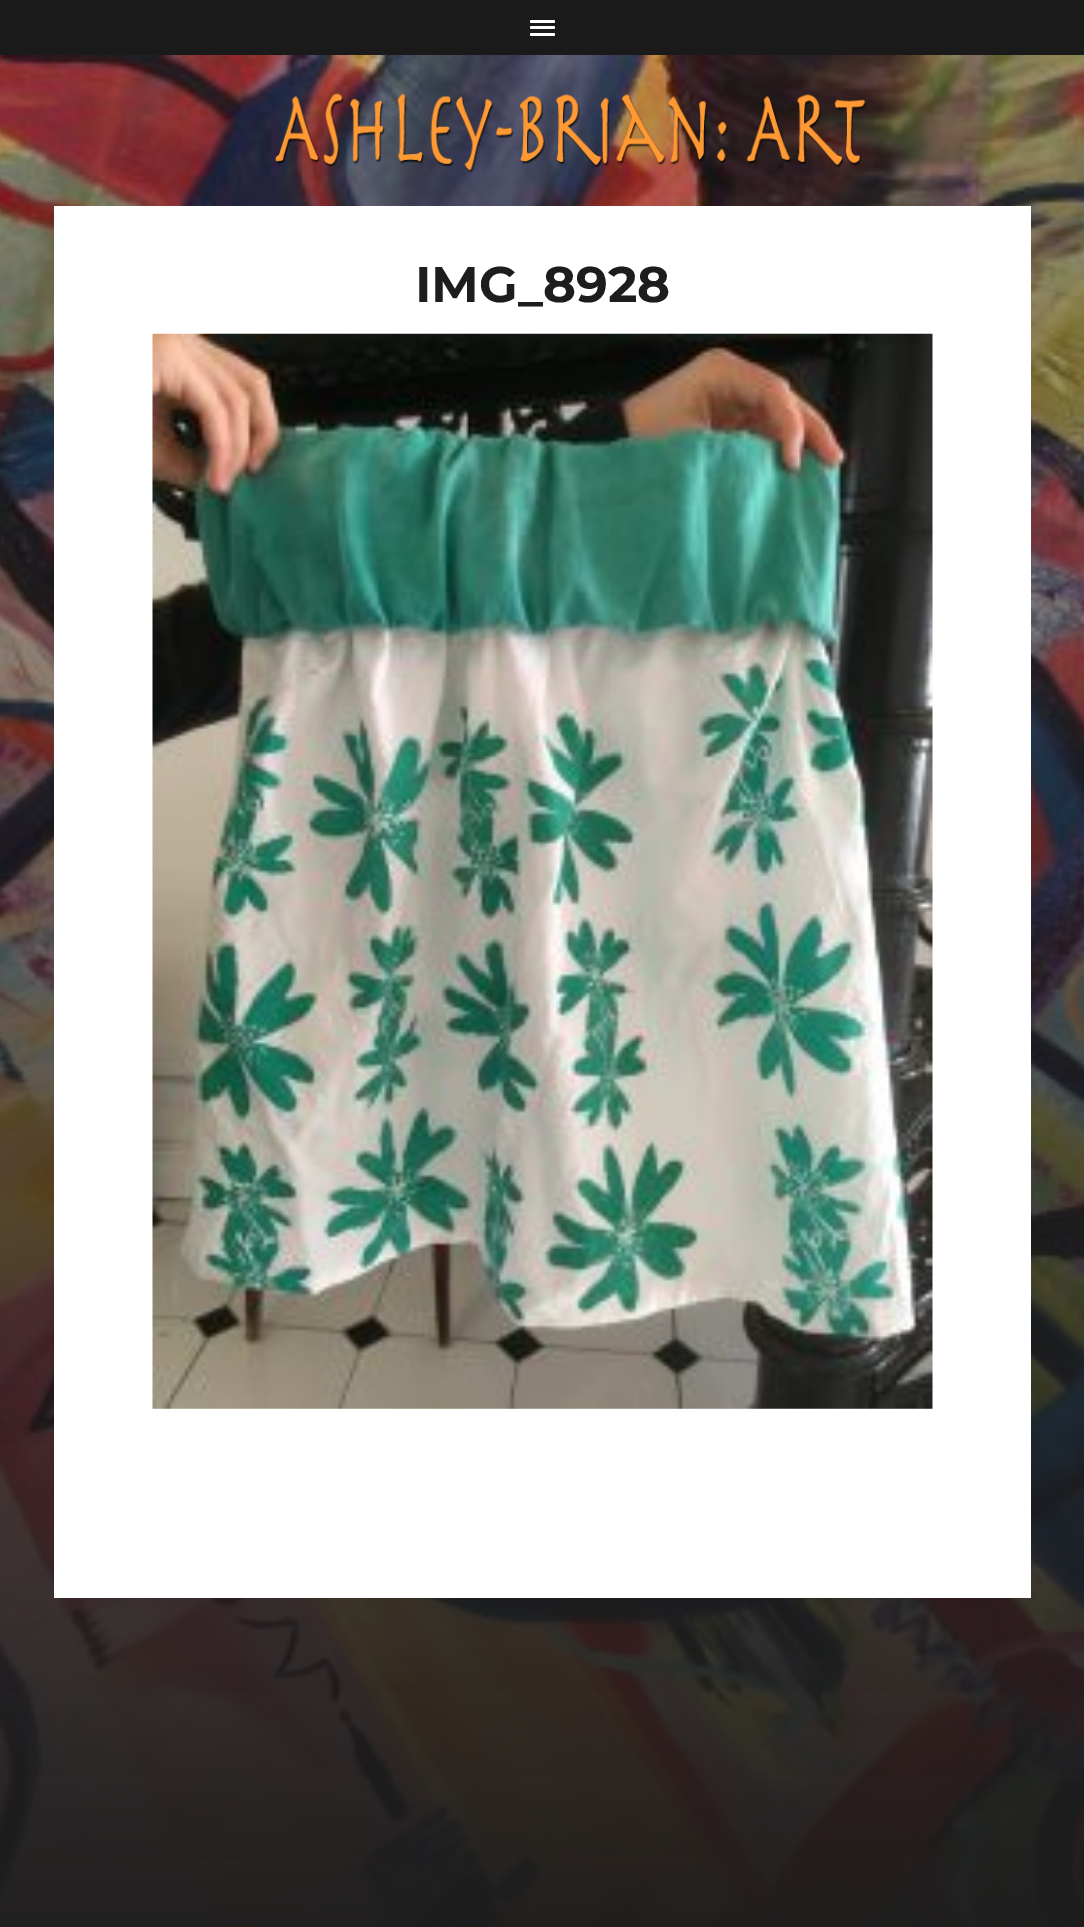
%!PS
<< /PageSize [1084 1927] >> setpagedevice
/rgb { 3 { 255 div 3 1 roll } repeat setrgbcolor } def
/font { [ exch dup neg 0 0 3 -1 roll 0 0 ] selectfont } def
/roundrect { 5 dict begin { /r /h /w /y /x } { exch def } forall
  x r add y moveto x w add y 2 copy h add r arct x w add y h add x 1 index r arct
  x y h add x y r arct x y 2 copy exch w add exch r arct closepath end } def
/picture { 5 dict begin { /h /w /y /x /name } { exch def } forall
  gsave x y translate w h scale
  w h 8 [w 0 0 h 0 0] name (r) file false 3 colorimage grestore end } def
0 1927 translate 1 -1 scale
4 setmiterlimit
26 26 26 rgb
0 0 1084 1927 rectfill
255 255 255 rgb
530 20 25 3 1.5 roundrect fill
530 26 25 3 1.5 roundrect fill
530 33 25 3 1.5 roundrect fill
(img/1.rgb) 0 55 1084 1872 picture
(img/2.rgb) 275 93 592 80 picture
54 206 977 1392 rectfill
(img/3.rgb) 152 333 781 1076 picture
/Montserrat-Bold 50 font
29 29 29 rgb
415 302 moveto (IMG_8928) show
showpage
